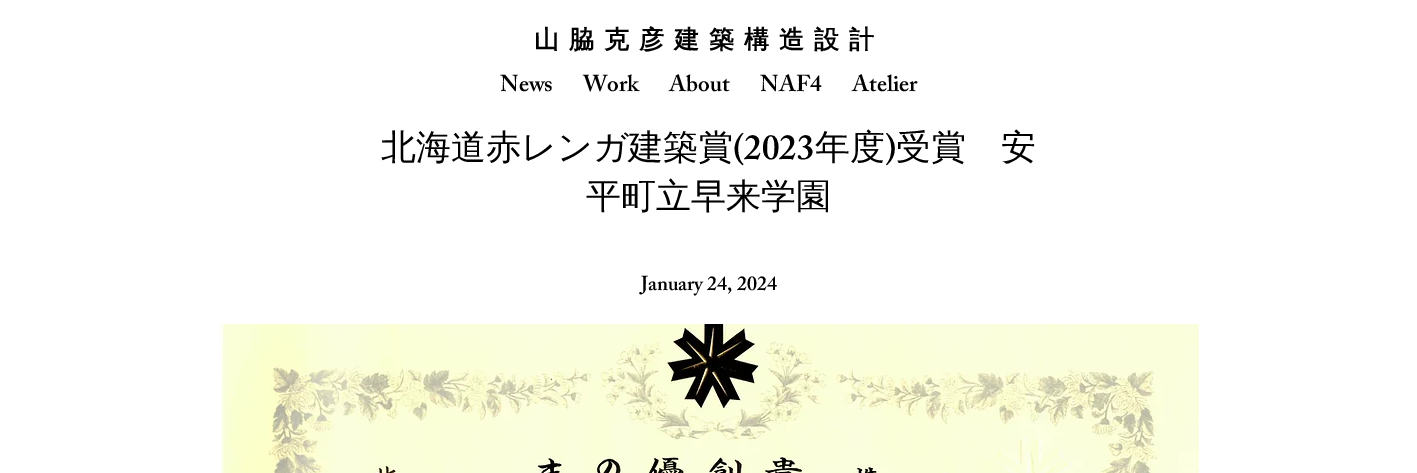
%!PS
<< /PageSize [1417 473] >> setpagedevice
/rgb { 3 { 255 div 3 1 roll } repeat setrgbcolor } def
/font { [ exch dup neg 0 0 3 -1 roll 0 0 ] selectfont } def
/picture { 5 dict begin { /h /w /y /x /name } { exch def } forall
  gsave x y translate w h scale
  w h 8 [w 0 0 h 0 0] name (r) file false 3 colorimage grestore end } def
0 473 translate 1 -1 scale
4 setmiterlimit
255 255 255 rgb
0 0 1417 473 rectfill
(img/1.rgb) 219 324 980 149 picture
/WenQuanYiZenHei-Bold 25 font
0 0 0 rgb
534 48 moveto 10 0 (山脇克彦建築構造設計) ashow
/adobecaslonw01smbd-SemiBold 23 font
[
  [(News) 500 91]
  [(Work) 583 91]
  [(About) 669 91]
  [(NAF4) 760 91]
  [(Atelier) 852 91]
] { aload pop moveto show } forall
/WenQuanYiZenHei-Medium 35 font
381 159 moveto (北海道赤レンガ建築賞) show
/adobecaslonw01smbd-SemiBold 35 font
733 159 moveto (\(2023) show
/WenQuanYiZenHei-Medium 35 font
815 159 moveto (年度) show
/adobecaslonw01smbd-SemiBold 35 font
885 159 moveto (\)) show
/WenQuanYiZenHei-Medium 35 font
896 159 moveto (受賞　安) show
586 208 moveto (平町立早来学園) show
/adobecaslonw01smbd-SemiBold 20 font
641 290 moveto (January 24, 2024) show
showpage
